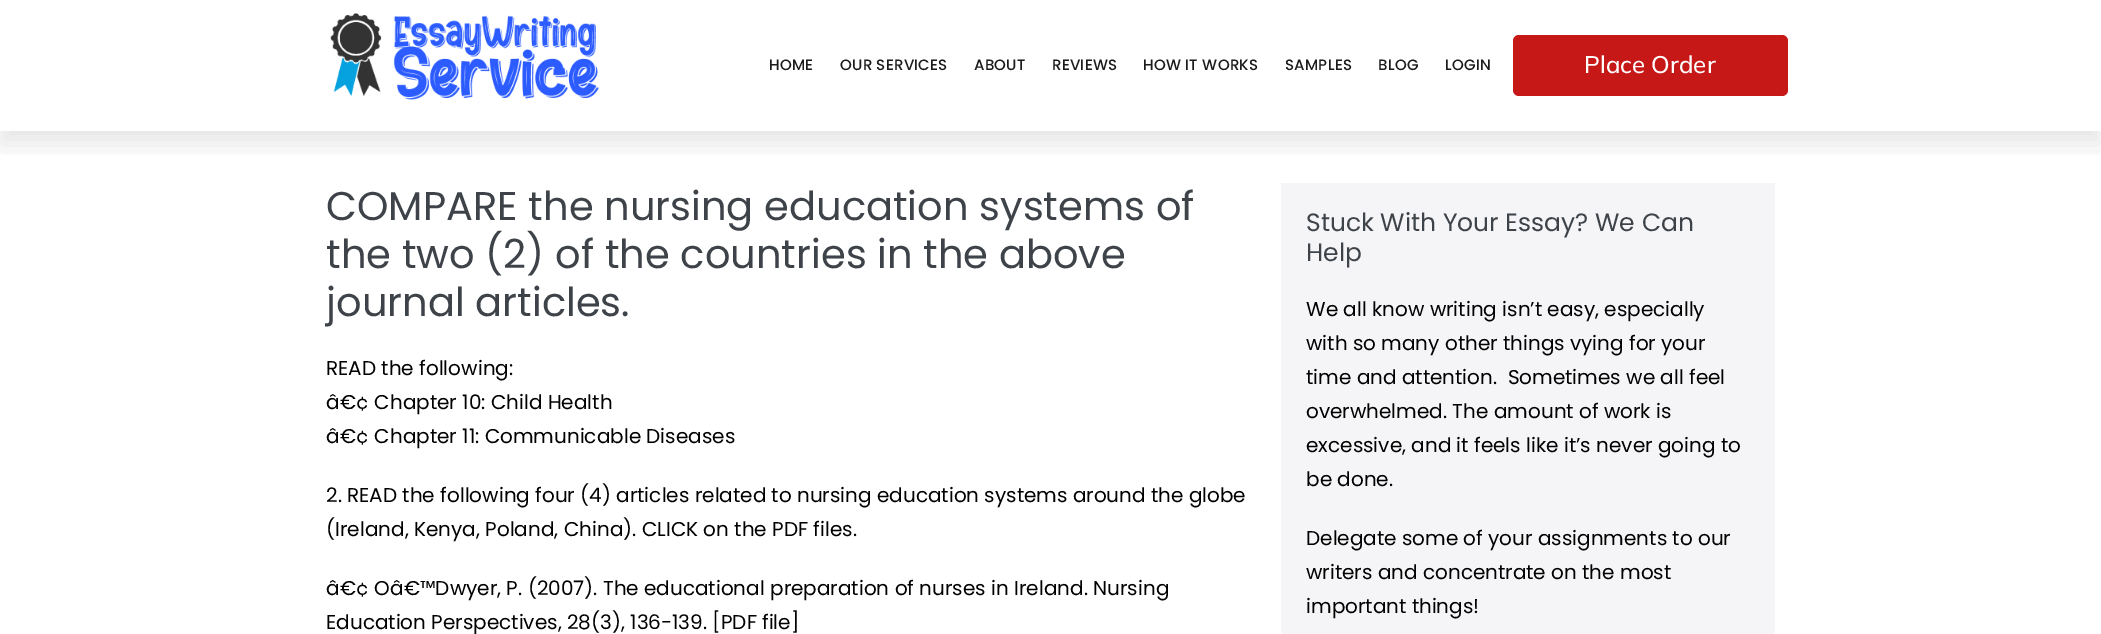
%!PS
<< /PageSize [2101 634] /PageUsesTransparency true >> setpagedevice
/rgb { 3 { 255 div 3 1 roll } repeat setrgbcolor } def
/font { [ exch dup neg 0 0 3 -1 roll 0 0 ] selectfont } def
/alpha { dup .setfillconstantalpha .setstrokeconstantalpha } def
/roundrect { 5 dict begin { /r /h /w /y /x } { exch def } forall
  x r add y moveto x w add y 2 copy h add r arct x w add y h add x 1 index r arct
  x y h add x y r arct x y 2 copy exch w add exch r arct closepath end } def
/shadow { 12 dict begin { /a /b /q /h /w /y /x } { exch def } forall gsave /was 0 def
  9 -2 -9 { dup b mul 4 div /e exch def 1 sub .425 mul 2.718 exch exp 1 add a .99 .min exch div /now exch def
    1 1 now sub 1 was sub div sub alpha /was now def
    w h .min e 2 mul add 0 gt { x e sub y e sub w e 2 mul add h e 2 mul add
      q e add b .6 mul add w h .min 2 div e add .min 0 .max roundrect fill } if } for grestore end } def
/picture { 5 dict begin { /h /w /y /x /name } { exch def } forall
  gsave x y translate w h scale
  w h 8 [w 0 0 h 0 0] name (r) file false 3 colorimage grestore end } def
0 .pushpdf14devicefilter
0 634 translate 1 -1 scale
4 setmiterlimit
255 255 255 rgb
0 0 2101 634 rectfill
gsave
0 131 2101 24 rectclip
0 0 0 rgb
0 13 2101 131 0 12.5 0.1 shadow
grestore
(img/1.rgb) 330 13 269 87 picture
199 24 24 rgb
1513 35 275 61 6 roundrect fill
245 245 247 rgb
1281 183 494 451 rectfill
/Poppins-Medium 15 font
27 27 27 rgb
769 70 moveto 0.25 0 (HOME) ashow
840 70 moveto 0.25 0 (OUR SERVICES) ashow
974 70 moveto 0.25 0 (ABOUT) ashow
1052 70 moveto 0.25 0 (REVIEWS) ashow
1143 70 moveto 0.25 0 (HOW IT WORKS) ashow
1285 70 moveto 0.25 0 (SAMPLES) ashow
1378 70 moveto 0.25 0 (BLOG) ashow
1445 70 moveto 0.25 0 (LOGIN) ashow
/Mulish-Medium 24 font
255 255 255 rgb
1584 73 moveto (Place Order) show
/Poppins-Regular 40 font
62 67 73 rgb
[
  [(COMPARE the nursing education systems of) 326 220]
  [(the two \(2\) of the countries in the above) 326 268]
  [(journal articles.) 326 316]
] { aload pop moveto show } forall
/Poppins-Regular 20 font
0 0 0 rgb
[
  [(READ the following:) 326 375]
  [(â€¢ Chapter 10: Child Health) 326 409]
  [(â€¢ Chapter 11: Communicable Diseases) 326 443]
  [(2. READ the following four \(4\) articles related to nursing education systems around the globe) 326 502]
  [(\(Ireland, Kenya, Poland, China\). CLICK on the PDF files.) 326 536]
  [(â€¢ Oâ€™Dwyer, P. \(2007\). The educational preparation of nurses in Ireland. Nursing) 326 595]
  [(Education Perspectives, 28\(3\), 136-139. [PDF file]) 326 629]
] { aload pop moveto show } forall
/Poppins-Regular 25 font
62 67 73 rgb
1306 231 moveto (Stuck With Your Essay? We Can) show
1306 261 moveto (Help) show
/Poppins-Regular 20 font
0 0 0 rgb
[
  [(We all know writing isn’t easy, especially) 1306 316]
  [(with so many other things vying for your) 1306 350]
  [(time and attention.  Sometimes we all feel) 1306 384]
  [(overwhelmed. The amount of work is) 1306 418]
  [(excessive, and it feels like it’s never going to) 1306 452]
  [(be done.) 1306 486]
  [(Delegate some of your assignments to our) 1306 545]
  [(writers and concentrate on the most) 1306 579]
  [(important things!) 1306 613]
] { aload pop moveto show } forall
.poppdf14devicefilter showpage
